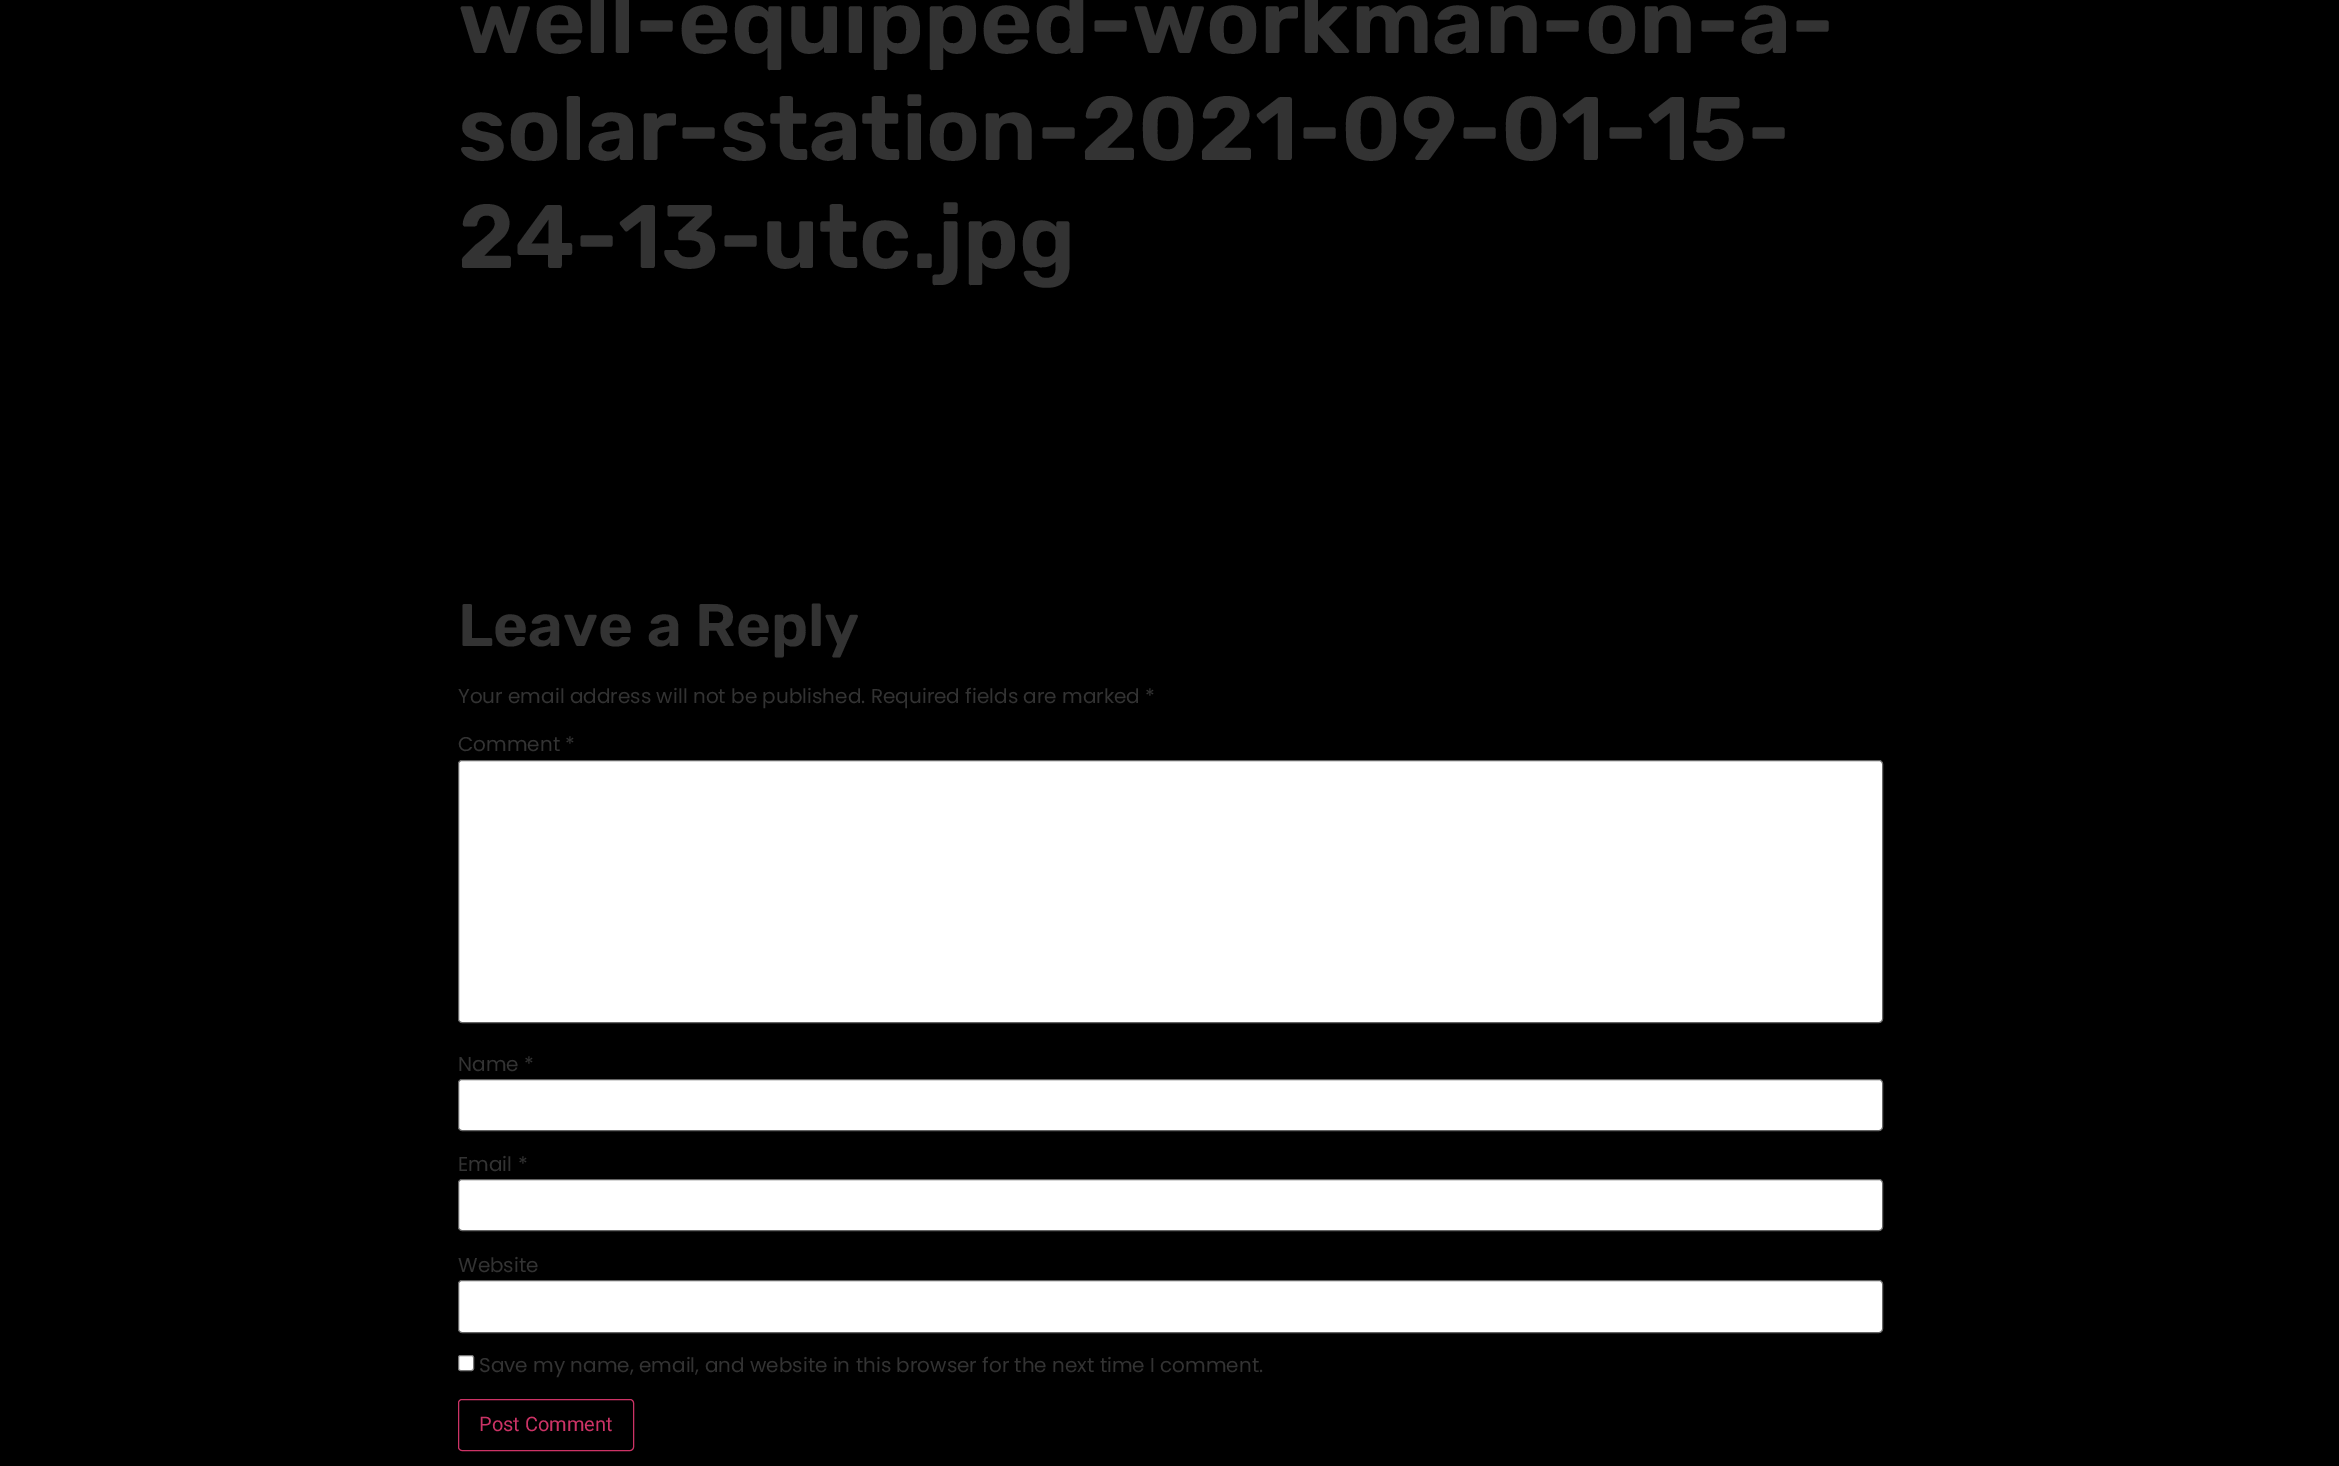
%!PS
<< /PageSize [2339 1466] >> setpagedevice
/rgb { 3 { 255 div 3 1 roll } repeat setrgbcolor } def
/font { [ exch dup neg 0 0 3 -1 roll 0 0 ] selectfont } def
/roundrect { 5 dict begin { /r /h /w /y /x } { exch def } forall
  x r add y moveto x w add y 2 copy h add r arct x w add y h add x 1 index r arct
  x y h add x y r arct x y 2 copy exch w add exch r arct closepath end } def
0 1466 translate 1 -1 scale
4 setmiterlimit
0 0 0 rgb
0 0 2339 1466 rectfill
255 255 255 rgb
458.5 760.5 1424 262 3.5 roundrect gsave fill grestore
102 102 102 rgb
stroke
255 255 255 rgb
458.5 1079.5 1424 51 3.5 roundrect gsave fill grestore
102 102 102 rgb
stroke
255 255 255 rgb
458.5 1179.5 1424 51 3.5 roundrect gsave fill grestore
102 102 102 rgb
stroke
255 255 255 rgb
458.5 1280.5 1424 52 3.5 roundrect gsave fill grestore
102 102 102 rgb
stroke
255 255 255 rgb
458.5 1355.5 15 15 2 roundrect gsave fill grestore
118 118 118 rgb
stroke
204 51 102 rgb
458.5 1399.5 175 51 3.5 roundrect stroke
/Rubik-SemiBold 90 font
51 51 51 rgb
[
  [(well-equipped-workman-on-a-) 458 53]
  [(solar-station-2021-09-01-15-) 458 160]
  [(24-13-utc.jpg) 458 268]
] { aload pop moveto show } forall
/Rubik-SemiBold 60 font
458 646 moveto (Leave a Reply) show
/Poppins-Regular 20 font
[
  [(Your email address will not be published. Required fields are marked *) 458 703]
  [(Comment *) 458 751]
  [(Name *) 458 1071]
  [(Email *) 458 1171]
  [(Website) 458 1272]
  [(Save my name, email, and website in this browser for the next time I comment.) 479 1372]
] { aload pop moveto show } forall
/Roboto-Regular 20 font
204 51 102 rgb
479 1431 moveto (Post Comment) show
showpage
